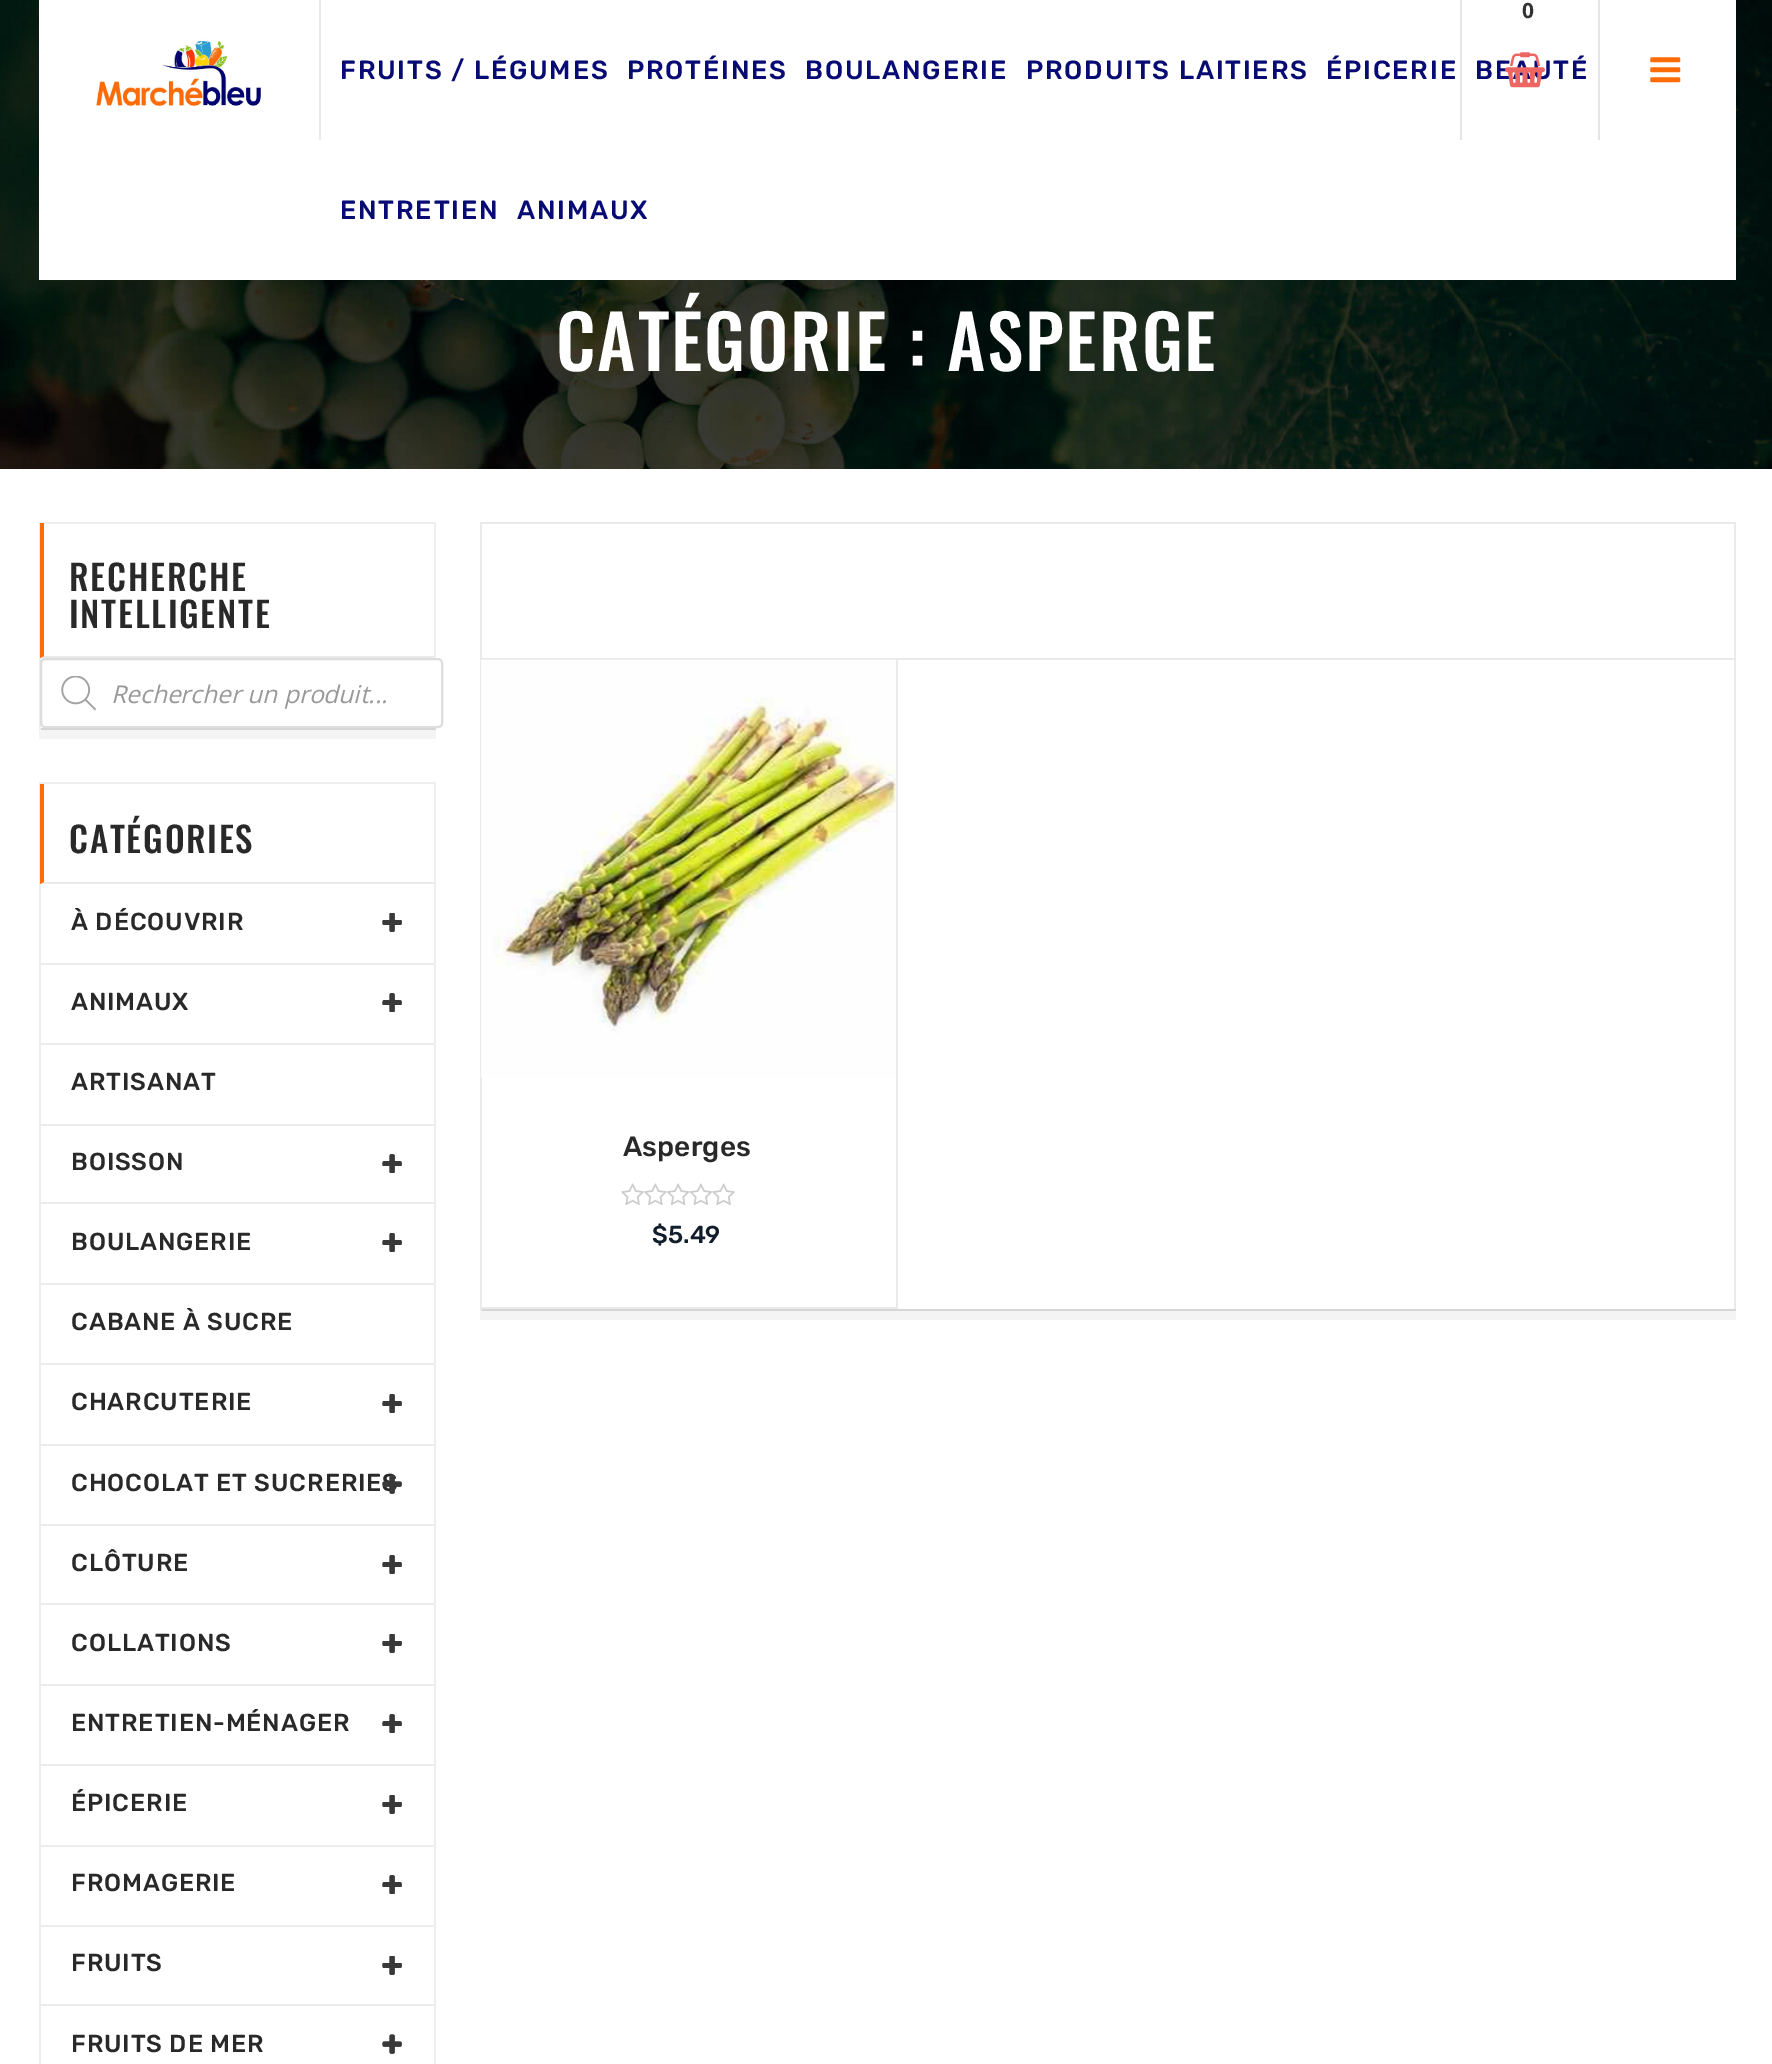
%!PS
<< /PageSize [1772 2064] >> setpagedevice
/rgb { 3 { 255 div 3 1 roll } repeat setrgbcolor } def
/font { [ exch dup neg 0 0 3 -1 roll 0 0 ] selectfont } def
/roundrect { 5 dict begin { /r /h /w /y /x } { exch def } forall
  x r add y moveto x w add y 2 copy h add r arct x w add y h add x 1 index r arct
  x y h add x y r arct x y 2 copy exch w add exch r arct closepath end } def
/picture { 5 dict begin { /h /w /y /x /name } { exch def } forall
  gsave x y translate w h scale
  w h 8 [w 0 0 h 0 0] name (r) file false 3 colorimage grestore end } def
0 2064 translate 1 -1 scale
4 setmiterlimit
255 255 255 rgb
0 0 1772 2064 rectfill
(img/4.rgb) 0 0 1772 469 picture
39 0 1697 280 rectfill
234 234 234 rgb
319 0 2 140 rectfill
(img/1.rgb) 96 39 165 68 picture
229 229 229 rgb
1460 0 2 140 rectfill
1598 0 2 140 rectfill
(img/3.rgb) 1650 57 31 26 picture
244 244 244 rgb
39 730 moveto 39 739 lineto 436 739 lineto 436 530 lineto 436 730 lineto closepath fill
[
  [39 522 397 2 238 238 238]
  [434 522 2 136 238 238 238]
  [39 728 397 2 213 213 213]
  [39 522 2 208 238 238 238]
] { aload pop rgb rectfill } forall
234 234 234 rgb
434 658 moveto 40 658 lineto 44 656 lineto 434 656 lineto closepath fill
254 107 7 rgb
40 658 moveto 40 523 lineto 44 523 lineto 44 656 lineto closepath fill
255 255 255 rgb
41 659 401 68 4 roundrect gsave fill grestore
221 221 221 rgb
2 setlinewidth
stroke
(img/5.rgb) 61 676 35 35 picture
[
  [39 782 397 2 238 238 238]
  [434 782 2 1282 238 238 238]
  [39 782 2 1282 238 238 238]
] { aload pop rgb rectfill } forall
234 234 234 rgb
434 884 moveto 40 884 lineto 44 882 lineto 434 882 lineto closepath fill
254 107 7 rgb
40 884 moveto 40 784 lineto 44 784 lineto 44 882 lineto closepath fill
236 236 236 rgb
40 963 394 2 rectfill
(img/6.rgb) 382 913 20 19 picture
(img/7.rgb) 382 913 20 19 picture
(img/8.rgb) 382 913 20 19 picture
(img/9.rgb) 382 913 20 19 picture
(img/10.rgb) 382 913 20 19 picture
(img/11.rgb) 382 913 20 19 picture
(img/12.rgb) 382 913 20 19 picture
(img/13.rgb) 382 913 20 19 picture
(img/14.rgb) 382 913 20 19 picture
(img/15.rgb) 382 913 20 19 picture
(img/16.rgb) 382 913 20 19 picture
(img/17.rgb) 382 913 20 19 picture
(img/18.rgb) 382 913 20 19 picture
(img/19.rgb) 382 913 20 19 picture
(img/20.rgb) 382 913 20 19 picture
(img/21.rgb) 382 913 20 18 picture
(img/22.rgb) 382 913 20 18 picture
(img/23.rgb) 382 913 20 18 picture
(img/24.rgb) 382 913 20 18 picture
(img/25.rgb) 382 923 8 8 picture
40 1043 394 2 rectfill
(img/26.rgb) 382 993 20 19 picture
(img/27.rgb) 382 993 20 19 picture
(img/28.rgb) 382 993 20 19 picture
(img/29.rgb) 382 993 20 19 picture
(img/30.rgb) 382 993 20 19 picture
(img/31.rgb) 382 993 20 19 picture
(img/32.rgb) 382 993 20 19 picture
(img/33.rgb) 382 993 20 19 picture
(img/34.rgb) 382 993 20 19 picture
(img/35.rgb) 382 993 20 19 picture
(img/36.rgb) 382 993 20 19 picture
(img/37.rgb) 382 993 20 19 picture
(img/38.rgb) 382 993 20 19 picture
(img/39.rgb) 382 993 20 19 picture
(img/40.rgb) 382 993 20 19 picture
(img/41.rgb) 382 994 20 18 picture
(img/42.rgb) 382 994 20 18 picture
(img/43.rgb) 382 994 20 18 picture
(img/44.rgb) 382 994 20 18 picture
40 1124 394 2 rectfill
40 1202 394 2 rectfill
(img/26.rgb) 382 1154 20 19 picture
(img/27.rgb) 382 1154 20 19 picture
(img/28.rgb) 382 1154 20 19 picture
(img/29.rgb) 382 1154 20 19 picture
(img/30.rgb) 382 1154 20 19 picture
(img/31.rgb) 382 1154 20 19 picture
(img/32.rgb) 382 1154 20 19 picture
(img/33.rgb) 382 1154 20 19 picture
(img/34.rgb) 382 1154 20 19 picture
(img/35.rgb) 382 1154 20 19 picture
(img/36.rgb) 382 1154 20 19 picture
(img/37.rgb) 382 1154 20 19 picture
(img/38.rgb) 382 1154 20 19 picture
(img/39.rgb) 382 1154 20 19 picture
(img/40.rgb) 382 1154 20 19 picture
(img/41.rgb) 382 1155 20 18 picture
(img/42.rgb) 382 1155 20 18 picture
(img/43.rgb) 382 1155 20 18 picture
(img/44.rgb) 382 1155 20 18 picture
40 1283 394 2 rectfill
(img/45.rgb) 382 1233 20 19 picture
(img/46.rgb) 382 1233 20 19 picture
(img/47.rgb) 382 1233 20 19 picture
(img/48.rgb) 382 1233 20 19 picture
(img/49.rgb) 382 1233 20 19 picture
(img/50.rgb) 382 1233 20 19 picture
(img/51.rgb) 382 1233 20 19 picture
(img/52.rgb) 382 1233 20 19 picture
(img/53.rgb) 382 1233 20 19 picture
(img/54.rgb) 382 1233 20 19 picture
(img/55.rgb) 382 1233 20 19 picture
(img/56.rgb) 382 1233 20 19 picture
(img/57.rgb) 382 1233 20 19 picture
(img/58.rgb) 382 1233 20 19 picture
(img/59.rgb) 382 1233 20 19 picture
(img/60.rgb) 382 1233 20 19 picture
(img/61.rgb) 382 1234 20 18 picture
(img/62.rgb) 382 1234 20 18 picture
(img/63.rgb) 382 1235 20 17 picture
40 1363 394 2 rectfill
40 1444 394 2 rectfill
(img/45.rgb) 382 1394 20 19 picture
(img/46.rgb) 382 1394 20 19 picture
(img/47.rgb) 382 1394 20 19 picture
(img/48.rgb) 382 1394 20 19 picture
(img/49.rgb) 382 1394 20 19 picture
(img/50.rgb) 382 1394 20 19 picture
(img/51.rgb) 382 1394 20 19 picture
(img/52.rgb) 382 1394 20 19 picture
(img/53.rgb) 382 1394 20 19 picture
(img/54.rgb) 382 1394 20 19 picture
(img/55.rgb) 382 1394 20 19 picture
(img/56.rgb) 382 1394 20 19 picture
(img/57.rgb) 382 1394 20 19 picture
(img/58.rgb) 382 1394 20 19 picture
(img/59.rgb) 382 1394 20 19 picture
(img/60.rgb) 382 1394 20 19 picture
(img/61.rgb) 382 1395 20 18 picture
(img/62.rgb) 382 1395 20 18 picture
(img/63.rgb) 382 1396 20 17 picture
40 1524 394 2 rectfill
40 1603 394 2 rectfill
(img/45.rgb) 382 1555 20 19 picture
(img/46.rgb) 382 1555 20 19 picture
(img/47.rgb) 382 1555 20 19 picture
(img/48.rgb) 382 1555 20 19 picture
(img/49.rgb) 382 1555 20 19 picture
(img/50.rgb) 382 1555 20 19 picture
(img/51.rgb) 382 1555 20 19 picture
(img/52.rgb) 382 1555 20 19 picture
(img/53.rgb) 382 1555 20 19 picture
(img/54.rgb) 382 1555 20 19 picture
(img/55.rgb) 382 1555 20 19 picture
(img/56.rgb) 382 1555 20 19 picture
(img/57.rgb) 382 1555 20 19 picture
(img/58.rgb) 382 1555 20 19 picture
(img/59.rgb) 382 1555 20 19 picture
(img/60.rgb) 382 1555 20 19 picture
(img/61.rgb) 382 1556 20 18 picture
(img/62.rgb) 382 1556 20 18 picture
(img/63.rgb) 382 1557 20 17 picture
40 1684 394 2 rectfill
(img/6.rgb) 382 1634 20 19 picture
(img/7.rgb) 382 1634 20 19 picture
(img/8.rgb) 382 1634 20 19 picture
(img/9.rgb) 382 1634 20 19 picture
(img/10.rgb) 382 1634 20 19 picture
(img/11.rgb) 382 1634 20 19 picture
(img/12.rgb) 382 1634 20 19 picture
(img/13.rgb) 382 1634 20 19 picture
(img/14.rgb) 382 1634 20 19 picture
(img/15.rgb) 382 1634 20 19 picture
(img/16.rgb) 382 1634 20 19 picture
(img/17.rgb) 382 1634 20 19 picture
(img/18.rgb) 382 1634 20 19 picture
(img/19.rgb) 382 1634 20 19 picture
(img/20.rgb) 382 1634 20 19 picture
(img/21.rgb) 382 1634 20 18 picture
(img/22.rgb) 382 1634 20 18 picture
(img/23.rgb) 382 1634 20 18 picture
(img/24.rgb) 382 1634 20 18 picture
(img/25.rgb) 382 1644 8 8 picture
40 1764 394 2 rectfill
(img/26.rgb) 382 1714 20 19 picture
(img/27.rgb) 382 1714 20 19 picture
(img/28.rgb) 382 1714 20 19 picture
(img/29.rgb) 382 1714 20 19 picture
(img/30.rgb) 382 1714 20 19 picture
(img/31.rgb) 382 1714 20 19 picture
(img/32.rgb) 382 1714 20 19 picture
(img/33.rgb) 382 1714 20 19 picture
(img/34.rgb) 382 1714 20 19 picture
(img/35.rgb) 382 1714 20 19 picture
(img/36.rgb) 382 1714 20 19 picture
(img/37.rgb) 382 1714 20 19 picture
(img/38.rgb) 382 1714 20 19 picture
(img/39.rgb) 382 1714 20 19 picture
(img/40.rgb) 382 1714 20 19 picture
(img/41.rgb) 382 1715 20 18 picture
(img/42.rgb) 382 1715 20 18 picture
(img/43.rgb) 382 1715 20 18 picture
(img/44.rgb) 382 1715 20 18 picture
40 1845 394 2 rectfill
(img/6.rgb) 382 1795 20 19 picture
(img/7.rgb) 382 1795 20 19 picture
(img/8.rgb) 382 1795 20 19 picture
(img/9.rgb) 382 1795 20 19 picture
(img/10.rgb) 382 1795 20 19 picture
(img/11.rgb) 382 1795 20 19 picture
(img/12.rgb) 382 1795 20 19 picture
(img/13.rgb) 382 1795 20 19 picture
(img/14.rgb) 382 1795 20 19 picture
(img/15.rgb) 382 1795 20 19 picture
(img/16.rgb) 382 1795 20 19 picture
(img/17.rgb) 382 1795 20 19 picture
(img/18.rgb) 382 1795 20 19 picture
(img/19.rgb) 382 1795 20 19 picture
(img/20.rgb) 382 1795 20 19 picture
(img/21.rgb) 382 1795 20 18 picture
(img/22.rgb) 382 1795 20 18 picture
(img/23.rgb) 382 1795 20 18 picture
(img/24.rgb) 382 1795 20 18 picture
(img/25.rgb) 382 1805 8 8 picture
40 1925 394 2 rectfill
(img/83.rgb) 382 1875 20 19 picture
(img/84.rgb) 382 1875 20 19 picture
(img/85.rgb) 382 1875 20 19 picture
(img/86.rgb) 382 1875 20 19 picture
(img/87.rgb) 382 1875 20 19 picture
(img/88.rgb) 382 1875 20 19 picture
(img/89.rgb) 382 1875 20 19 picture
(img/90.rgb) 382 1875 20 19 picture
(img/91.rgb) 382 1875 20 19 picture
(img/92.rgb) 382 1875 20 19 picture
(img/93.rgb) 382 1875 20 19 picture
(img/94.rgb) 382 1875 20 19 picture
(img/95.rgb) 382 1875 20 19 picture
(img/96.rgb) 382 1875 20 19 picture
(img/97.rgb) 382 1875 20 19 picture
(img/98.rgb) 382 1876 20 18 picture
(img/99.rgb) 382 1876 20 18 picture
(img/100.rgb) 382 1876 20 18 picture
(img/101.rgb) 382 1876 20 17 picture
40 2004 394 2 rectfill
(img/6.rgb) 382 1956 20 19 picture
(img/7.rgb) 382 1956 20 19 picture
(img/8.rgb) 382 1956 20 19 picture
(img/9.rgb) 382 1956 20 19 picture
(img/10.rgb) 382 1956 20 19 picture
(img/11.rgb) 382 1956 20 19 picture
(img/12.rgb) 382 1956 20 19 picture
(img/13.rgb) 382 1956 20 19 picture
(img/14.rgb) 382 1956 20 19 picture
(img/15.rgb) 382 1956 20 19 picture
(img/16.rgb) 382 1956 20 19 picture
(img/17.rgb) 382 1956 20 19 picture
(img/18.rgb) 382 1956 20 19 picture
(img/19.rgb) 382 1956 20 19 picture
(img/20.rgb) 382 1956 20 19 picture
(img/21.rgb) 382 1956 20 18 picture
(img/22.rgb) 382 1956 20 18 picture
(img/23.rgb) 382 1956 20 18 picture
(img/24.rgb) 382 1956 20 18 picture
(img/25.rgb) 382 1966 8 8 picture
(img/102.rgb) 382 2034 20 20 picture
(img/103.rgb) 382 2034 20 20 picture
(img/104.rgb) 382 2034 20 20 picture
(img/105.rgb) 382 2034 20 20 picture
(img/106.rgb) 382 2034 20 20 picture
(img/107.rgb) 382 2034 20 20 picture
(img/108.rgb) 382 2034 20 20 picture
(img/109.rgb) 382 2034 20 20 picture
(img/110.rgb) 382 2034 20 20 picture
(img/111.rgb) 382 2034 20 20 picture
(img/112.rgb) 382 2034 20 20 picture
(img/113.rgb) 382 2034 20 20 picture
(img/114.rgb) 382 2034 20 20 picture
(img/115.rgb) 382 2034 20 20 picture
(img/116.rgb) 382 2034 20 20 picture
(img/117.rgb) 382 2034 20 20 picture
(img/118.rgb) 382 2034 20 20 picture
(img/119.rgb) 382 2034 20 20 picture
(img/120.rgb) 382 2034 18 18 picture
[
  [480 1311 1256 9 244 244 244]
  [480 522 1256 2 234 234 234]
  [1734 522 2 789 234 234 234]
  [480 1309 1256 2 213 213 213]
  [480 522 2 789 234 234 234]
  [481 658 1253 2 234 234 234]
  [896 660 2 649 234 234 234]
  [481 1307 417 2 234 234 234]
] { aload pop rgb rectfill } forall
(img/121.rgb) 481 659 415 419 picture
(img/122.rgb) 621 1183 114 22 picture
/OpenSans-Bold 21 font
51 51 51 rgb
1522 18 moveto 0.9 0 (0) ashow
/Rubik-Medium 26.25 font
8 11 115 rgb
340 79 moveto 1.75 0 (FRUITS / LÉGUMES) ashow
627 79 moveto 1.75 0 (PROTÉINES) ashow
805 79 moveto 1.75 0 (BOULANGERIE) ashow
1026 79 moveto 1.75 0 (PRODUITS LAITIERS) ashow
1326 79 moveto 1.75 0 (ÉPICERIE) ashow
1475 79 moveto 1.75 0 (BEAUTÉ) ashow
(img/2.rgb) 1505 52 40 36 picture
340 219 moveto 1.75 0 (ENTRETIEN) ashow
517 219 moveto 1.75 0 (ANIMAUX) ashow
/Oswald-Medium 73.5 font
255 255 255 rgb
556 371 moveto 1.75 0 (CATÉGORIE : ASPERGE) ashow
/Oswald-Medium 35 font
41 41 41 rgb
69 591 moveto 1.75 0 (RECHERCHE) ashow
69 628 moveto 1.75 0 (INTELLIGENTE) ashow
/OpenSans-Italic 24.5 font
153 153 153 rgb
111 703 moveto (Rechercher un produit...) show
/Oswald-Medium 35 font
41 41 41 rgb
69 853 moveto 1.75 0 (CATÉGORIES) ashow
/Rubik-Medium 24.5 font
71 930 moveto 0.9 0 (À DÉCOUVRIR) ashow
71 1010 moveto 0.9 0 (ANIMAUX) ashow
71 1090 moveto 0.9 0 (ARTISANAT) ashow
71 1170 moveto 0.9 0 (BOISSON) ashow
71 1250 moveto 0.9 0 (BOULANGERIE) ashow
71 1330 moveto 0.9 0 (CABANE À SUCRE) ashow
71 1410 moveto 0.9 0 (CHARCUTERIE) ashow
71 1491 moveto 0.9 0 (CHOCOLAT ET SUCRERIES) ashow
(img/64.rgb) 382 1474 20 20 picture
(img/65.rgb) 382 1474 20 20 picture
(img/66.rgb) 382 1476 20 18 picture
(img/67.rgb) 382 1476 20 18 picture
(img/68.rgb) 382 1476 20 18 picture
(img/69.rgb) 382 1476 20 18 picture
(img/70.rgb) 382 1476 20 18 picture
(img/71.rgb) 382 1476 20 18 picture
(img/72.rgb) 382 1477 20 17 picture
(img/73.rgb) 382 1477 20 17 picture
(img/74.rgb) 382 1477 20 17 picture
(img/75.rgb) 382 1477 20 17 picture
(img/76.rgb) 382 1477 20 17 picture
(img/77.rgb) 382 1477 20 17 picture
(img/78.rgb) 382 1477 20 17 picture
(img/79.rgb) 382 1477 20 17 picture
(img/80.rgb) 382 1477 20 17 picture
(img/81.rgb) 382 1477 20 17 picture
(img/82.rgb) 382 1477 18 11 picture
71 1571 moveto 0.9 0 (CLÔTURE) ashow
71 1651 moveto 0.9 0 (COLLATIONS) ashow
71 1731 moveto 0.9 0 (ENTRETIEN-MÉNAGER) ashow
71 1811 moveto 0.9 0 (ÉPICERIE) ashow
71 1891 moveto 0.9 0 (FROMAGERIE) ashow
71 1971 moveto 0.9 0 (FRUITS) ashow
71 2052 moveto 0.9 0 (FRUITS DE MER) ashow
/Rubik-Medium 28 font
623 1156 moveto (Asperges) show
/Rubik-Medium 24.5 font
19 30 44 rgb
652 1243 moveto ($5.49) show
showpage
